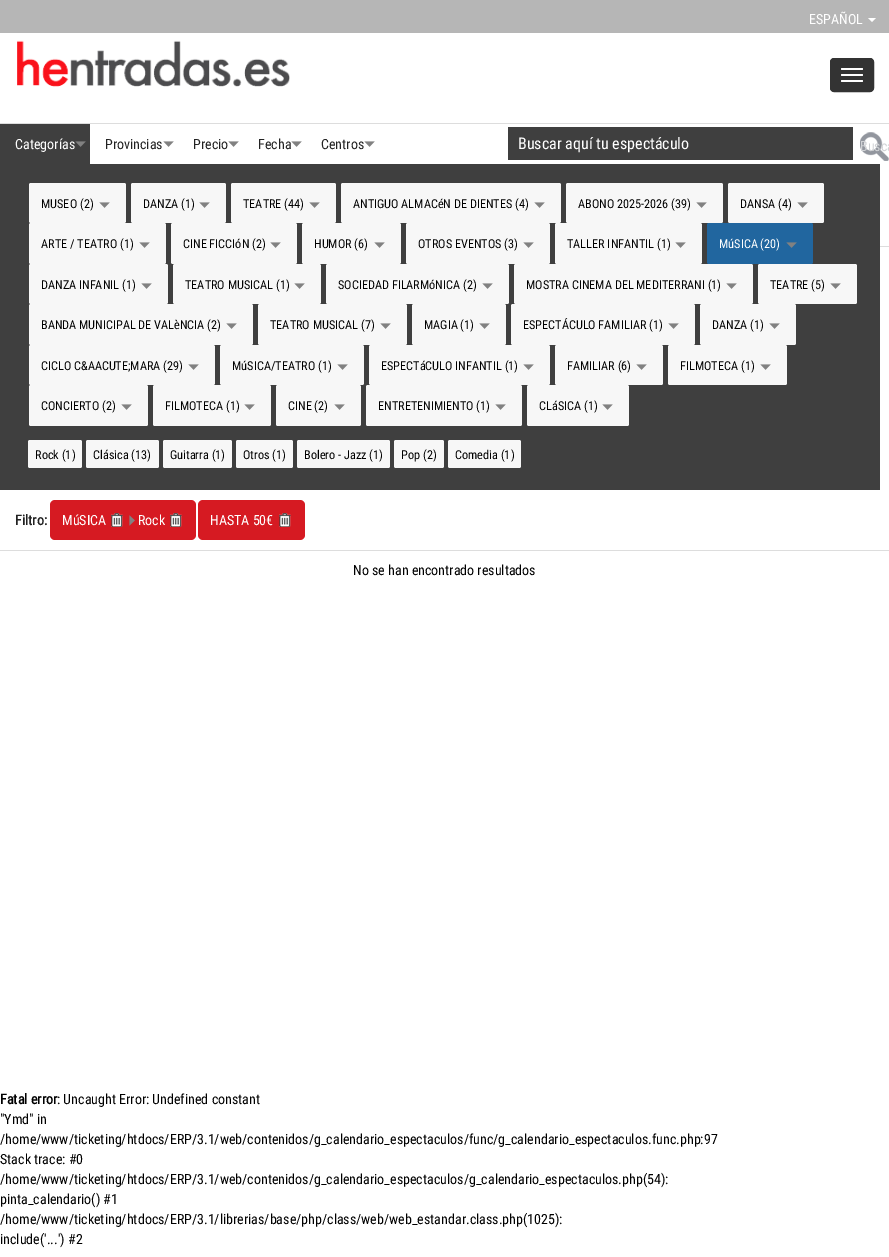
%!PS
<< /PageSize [889 1257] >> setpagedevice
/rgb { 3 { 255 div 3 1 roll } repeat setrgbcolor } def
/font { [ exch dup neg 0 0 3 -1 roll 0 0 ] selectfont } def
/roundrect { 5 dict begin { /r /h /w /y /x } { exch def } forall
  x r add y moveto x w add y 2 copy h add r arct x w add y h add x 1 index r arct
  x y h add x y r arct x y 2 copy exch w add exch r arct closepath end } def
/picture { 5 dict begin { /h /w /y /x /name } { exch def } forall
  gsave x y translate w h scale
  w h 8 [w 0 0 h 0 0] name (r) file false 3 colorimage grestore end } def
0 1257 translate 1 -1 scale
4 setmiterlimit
255 255 255 rgb
0 0 889 1257 rectfill
182 182 182 rgb
0 0 889 33 rectfill
255 255 255 rgb
868 18 moveto 876 18 lineto 872 22 lineto closepath fill
(img/1.rgb) 17 40 273 47 picture
51 51 51 rgb
830.5 58.5 43 33 3.5 roundrect gsave fill grestore
stroke
255 255 255 rgb
841 68 22 2 1 roundrect fill
841 74 22 2 1 roundrect fill
841 80 22 2 1 roundrect fill
221 221 221 rgb
0 123 889 1 rectfill
63 63 63 rgb
0 124 90 40 rectfill
(img/2.rgb) 75 141 11 6 picture
(img/3.rgb) 163 141 11 6 picture
(img/3.rgb) 228 141 11 6 picture
(img/3.rgb) 291 141 11 6 picture
(img/3.rgb) 364 141 11 6 picture
508 127 345 33 rectfill
(img/4.rgb) 860 132 29 29 picture
0 164 880 326 rectfill
247 247 247 rgb
29 183 97 40 2 roundrect fill
(img/5.rgb) 99 202 11 6 picture
131 183 95 40 2 roundrect fill
(img/5.rgb) 199 202 11 6 picture
231 183 105 40 2 roundrect fill
(img/5.rgb) 309 202 11 6 picture
341 183 220 40 2 roundrect fill
(img/5.rgb) 534 202 11 6 picture
566 183 157 40 2 roundrect fill
(img/5.rgb) 696 202 11 6 picture
728 183 96 40 2 roundrect fill
(img/5.rgb) 797 202 11 6 picture
29 223 137 41 2 roundrect fill
(img/5.rgb) 139 242 11 6 picture
171 223 126 41 2 roundrect fill
(img/5.rgb) 270 242 11 6 picture
302 223 99 41 2 roundrect fill
(img/5.rgb) 374 242 11 6 picture
406 223 144 41 2 roundrect fill
(img/5.rgb) 523 242 11 6 picture
555 223 147 41 2 roundrect fill
(img/5.rgb) 675 242 11 6 picture
33 102 159 rgb
707 223 106 41 2 roundrect fill
(img/6.rgb) 786 242 11 6 picture
247 247 247 rgb
29 264 139 40 2 roundrect fill
(img/5.rgb) 141 283 11 6 picture
173 264 148 40 2 roundrect fill
(img/5.rgb) 294 283 11 6 picture
326 264 183 40 2 roundrect fill
(img/5.rgb) 482 283 11 6 picture
514 264 239 40 2 roundrect fill
(img/5.rgb) 726 283 11 6 picture
758 264 99 40 2 roundrect fill
(img/5.rgb) 830 283 11 6 picture
29 304 224 41 2 roundrect fill
(img/5.rgb) 226 323 11 6 picture
258 304 149 41 2 roundrect fill
(img/5.rgb) 380 323 11 6 picture
412 304 94 41 2 roundrect fill
(img/5.rgb) 479 323 11 6 picture
511 304 184 41 2 roundrect fill
(img/5.rgb) 668 323 11 6 picture
700 304 96 41 2 roundrect fill
(img/5.rgb) 769 323 11 6 picture
29 345 186 40 2 roundrect fill
(img/5.rgb) 188 364 11 6 picture
220 345 144 40 2 roundrect fill
(img/5.rgb) 337 364 11 6 picture
369 345 181 40 2 roundrect fill
(img/5.rgb) 523 364 11 6 picture
555 345 108 40 2 roundrect fill
(img/5.rgb) 636 364 11 6 picture
668 345 119 40 2 roundrect fill
(img/5.rgb) 760 364 11 6 picture
29 385 119 41 2 roundrect fill
(img/5.rgb) 121 404 11 6 picture
153 385 118 41 2 roundrect fill
(img/5.rgb) 244 404 11 6 picture
276 385 85 41 2 roundrect fill
(img/5.rgb) 334 404 11 6 picture
366 385 156 41 2 roundrect fill
(img/5.rgb) 495 404 11 6 picture
527 385 102 41 2 roundrect fill
(img/5.rgb) 602 404 11 6 picture
28 440 54 28 2 roundrect fill
86 440 73 28 2 roundrect fill
163 440 69 28 2 roundrect fill
236 440 57 28 2 roundrect fill
297 440 93 28 2 roundrect fill
394 440 50 28 2 roundrect fill
448 440 73 28 2 roundrect fill
221 221 221 rgb
880 246 9 1 rectfill
0 550 889 1 rectfill
214 26 34 rgb
50 500 146 40 5 roundrect fill
(img/7.rgb) 111 513 12 14 picture
(img/8.rgb) 129 515 6 11 picture
(img/7.rgb) 170 513 12 14 picture
198 500 107 40 5 roundrect fill
(img/7.rgb) 279 513 12 14 picture
/RobotoCondensed-Regular 14 font
255 255 255 rgb
809 24 moveto (ESPAÑOL) show
15 149 moveto (Categorías) show
34 34 34 rgb
[
  [(Provincias) 105 149]
  [(Precio) 193 149]
  [(Fecha) 258 149]
  [(Centros) 321 149]
] { aload pop moveto show } forall
/RobotoCondensed-Regular 16 font
255 255 255 rgb
518 149 moveto (Buscar aquí tu espectáculo) show
/RobotoCondensed-Regular 14 font
208 210 213 rgb
860 151 moveto (Busca) show
/RobotoCondensed-Regular 12.25 font
0 0 0 rgb
[
  [(MUSEO \(2\)) 41 208]
  [(DANZA \(1\)) 143 208]
  [(TEATRE \(44\)) 243 208]
  [(ANTIGUO ALMACéN DE DIENTES \(4\)) 353 208]
  [(ABONO 2025-2026 \(39\)) 578 208]
  [(DANSA \(4\)) 740 208]
  [(ARTE / TEATRO \(1\)) 41 248]
  [(CINE FICCIóN \(2\)) 183 248]
  [(HUMOR \(6\)) 314 248]
  [(OTROS EVENTOS \(3\)) 418 248]
  [(TALLER INFANTIL \(1\)) 567 248]
] { aload pop moveto show } forall
255 255 255 rgb
719 248 moveto (MúSICA \(20\)) show
0 0 0 rgb
[
  [(DANZA INFANIL \(1\)) 41 289]
  [(TEATRO MUSICAL \(1\)) 185 289]
  [(SOCIEDAD FILARMóNICA \(2\)) 338 289]
  [(MOSTRA CINEMA DEL MEDITERRANI \(1\)) 526 289]
  [(TEATRE \(5\)) 770 289]
  [(BANDA MUNICIPAL DE VALèNCIA \(2\)) 41 329]
  [(TEATRO MUSICAL \(7\)) 270 329]
  [(MAGIA \(1\)) 424 329]
  [(ESPECTÁCULO FAMILIAR \(1\)) 523 329]
  [(DANZA \(1\)) 712 329]
  [(CICLO C&AACUTE;MARA \(29\)) 41 370]
  [(MúSICA/TEATRO \(1\)) 232 370]
  [(ESPECTáCULO INFANTIL \(1\)) 381 370]
  [(FAMILIAR \(6\)) 567 370]
  [(FILMOTECA \(1\)) 680 370]
  [(CONCIERTO \(2\)) 41 410]
  [(FILMOTECA \(1\)) 165 410]
  [(CINE \(2\)) 288 410]
  [(ENTRETENIMIENTO \(1\)) 378 410]
  [(CLáSICA \(1\)) 539 410]
  [(Rock \(1\)) 35 459]
  [(Clásica \(13\)) 93 459]
  [(Guitarra \(1\)) 170 459]
  [(Otros \(1\)) 243 459]
  [(Bolero - Jazz \(1\)) 304 459]
  [(Pop \(2\)) 401 459]
  [(Comedia \(1\)) 455 459]
] { aload pop moveto show } forall
/RobotoCondensed-Bold 14 font
34 34 34 rgb
15 525 moveto (Filtro:) show
/RobotoCondensed-Regular 14 font
255 255 255 rgb
[
  [(MúSICA) 62 525]
  [(Rock) 138 525]
  [(HASTA 50€) 210 525]
] { aload pop moveto show } forall
0 0 0 rgb
353 575 moveto (No se han encontrado resultados) show
/RobotoCondensed-Bold 14 font
0 1104 moveto (Fatal error) show
/RobotoCondensed-Regular 14 font
[
  [(: Uncaught Error: Undefined constant) 57 1104]
  [("Ymd" in) 0 1124]
  [(/home/www/ticketing/htdocs/ERP/3.1/web/contenidos/g_calendario_espectaculos/func/g_calendario_espectaculos.func.php:97) 0 1144]
  [(Stack trace: #0) 0 1164]
  [(/home/www/ticketing/htdocs/ERP/3.1/web/contenidos/g_calendario_espectaculos/g_calendario_espectaculos.php\(54\):) 0 1184]
  [(pinta_calendario\(\) #1) 0 1204]
  [(/home/www/ticketing/htdocs/ERP/3.1/librerias/base/php/class/web/web_estandar.class.php\(1025\):) 0 1224]
  [(include\('...'\) #2) 0 1244]
] { aload pop moveto show } forall
showpage
